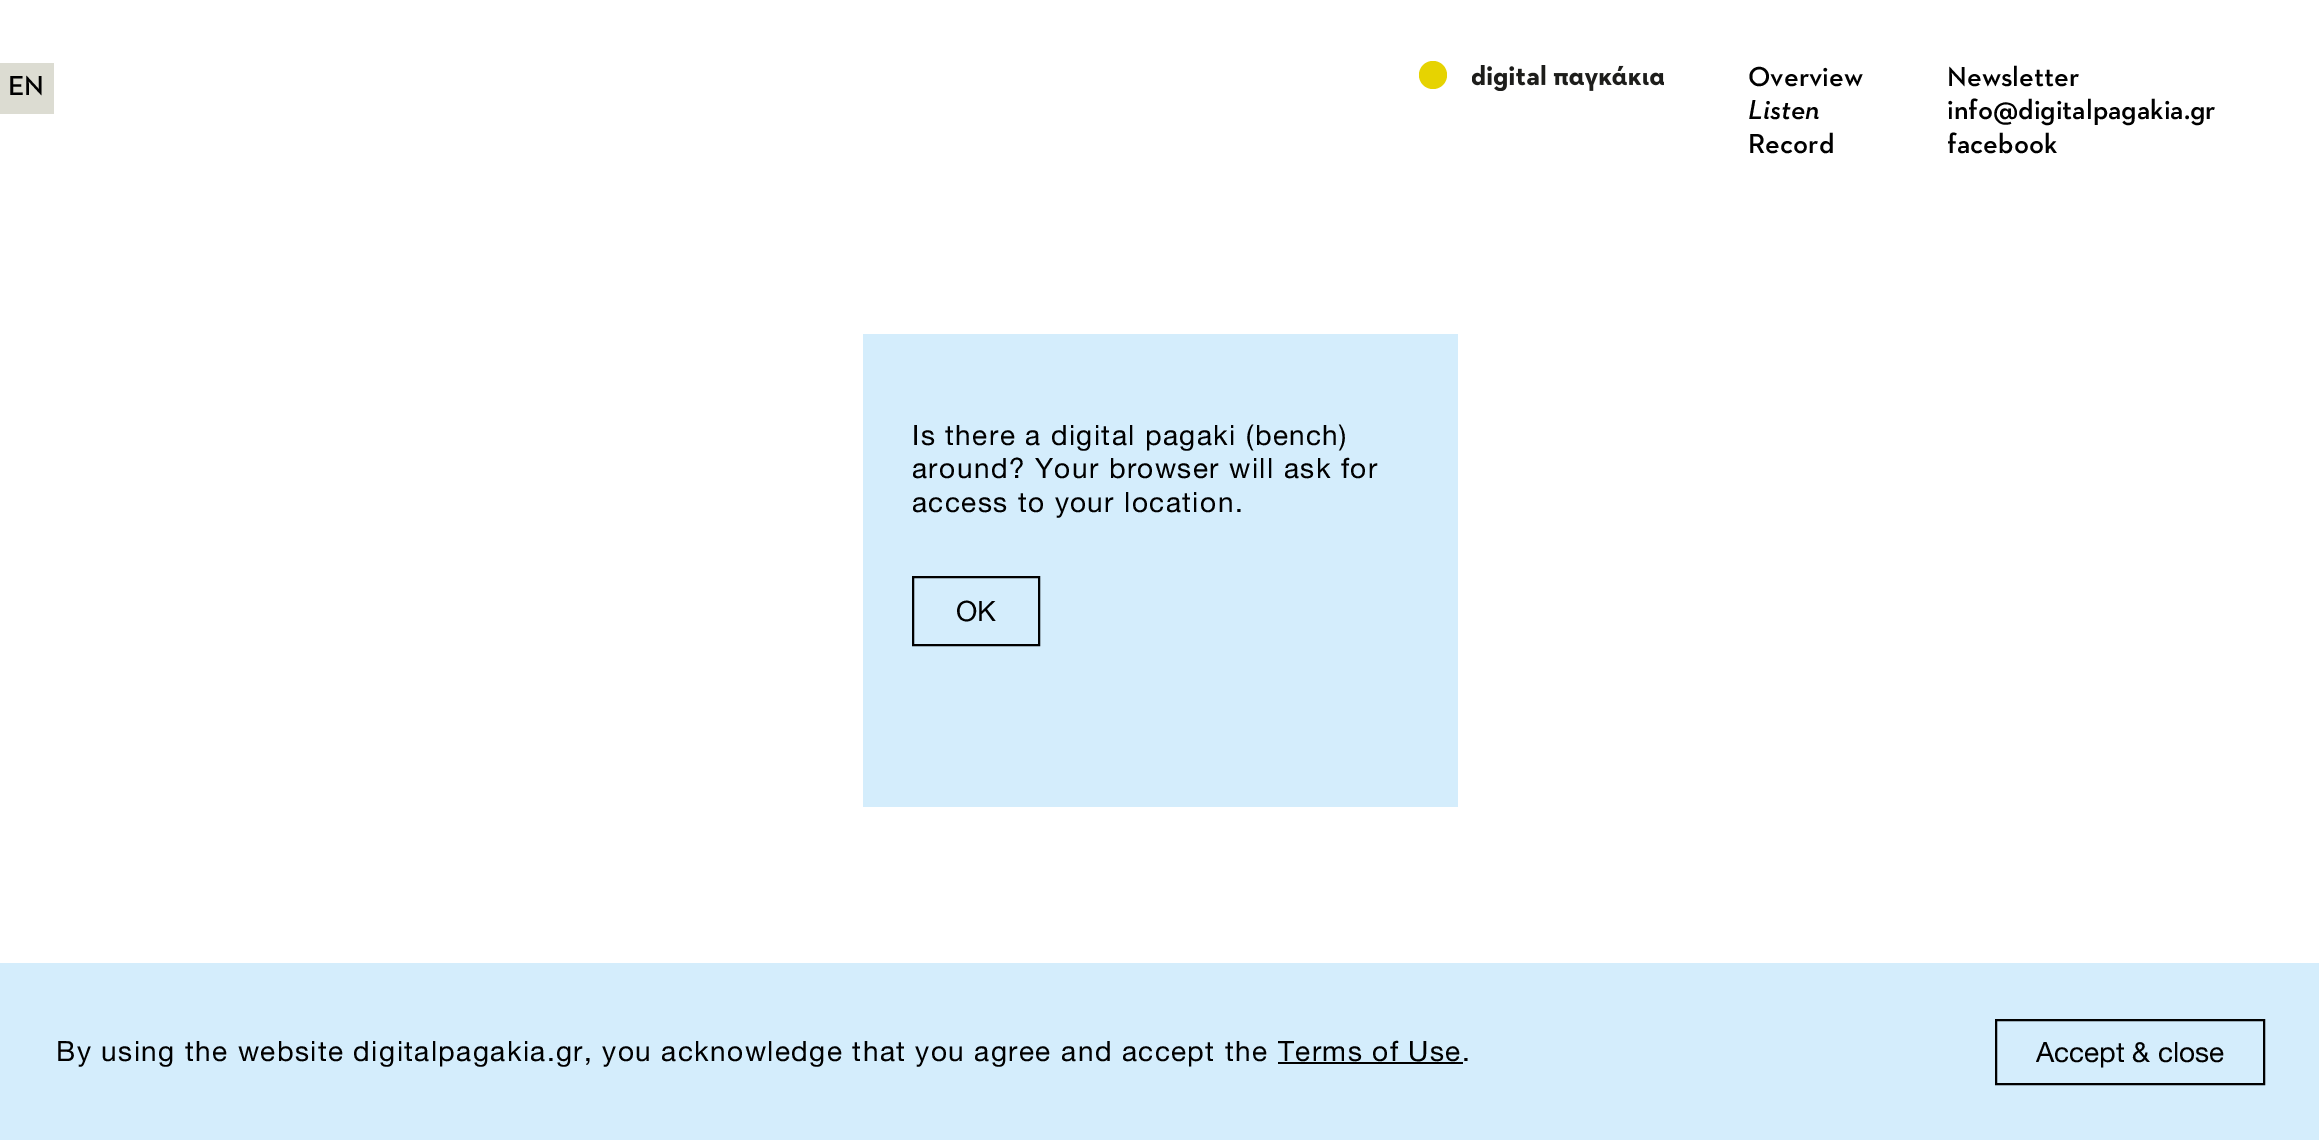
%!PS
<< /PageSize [2319 1140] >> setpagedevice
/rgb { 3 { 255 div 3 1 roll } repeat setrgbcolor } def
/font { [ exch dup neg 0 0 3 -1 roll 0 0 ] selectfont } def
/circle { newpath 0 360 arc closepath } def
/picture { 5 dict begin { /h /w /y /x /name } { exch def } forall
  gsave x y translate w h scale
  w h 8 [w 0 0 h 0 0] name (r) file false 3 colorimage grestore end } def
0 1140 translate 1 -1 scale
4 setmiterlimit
255 255 255 rgb
0 0 2319 1140 rectfill
220 220 210 rgb
0 63 54 51 rectfill
230 211 1 rgb
1433 75 14 circle fill
(img/1.rgb) 1472 65 192 26 picture
212 237 252 rgb
863 334 595 473 rectfill
0 0 0 rgb
2 setlinewidth
913 577 126 68 rectstroke
212 237 252 rgb
0 963 2319 177 rectfill
0 0 0 rgb
1278 1062 185 2 rectfill
1996 1020 268 64 rectstroke
/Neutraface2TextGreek-SemiBold 28 font
8 95 moveto (EN) show
1748 86 moveto (Overview) show
/Neutraface2TextGreek-SemiBoldItalic 28 font
1748 119 moveto (Listen) show
/Neutraface2TextGreek-SemiBold 28 font
[
  [(Record) 1748 153]
  [(Newsletter) 1947 86]
  [(info@digitalpagakia.gr) 1947 119]
  [(facebook) 1947 153]
] { aload pop moveto show } forall
/HelveticaNeue-Regular 28 font
912 445 moveto 1.4 0 (Is there a digital pagaki \(bench\)) ashow
912 478 moveto 1.4 0 (around? Your browser will ask for) ashow
912 512 moveto 1.4 0 (access to your location.) ashow
956 621 moveto (OK) show
56 1061 moveto 1.4 0 (By using the website digitalpagakia.gr, you acknowledge that you agree and accept the Terms of Use.) ashow
2036 1062 moveto (Accept & close) show
showpage
